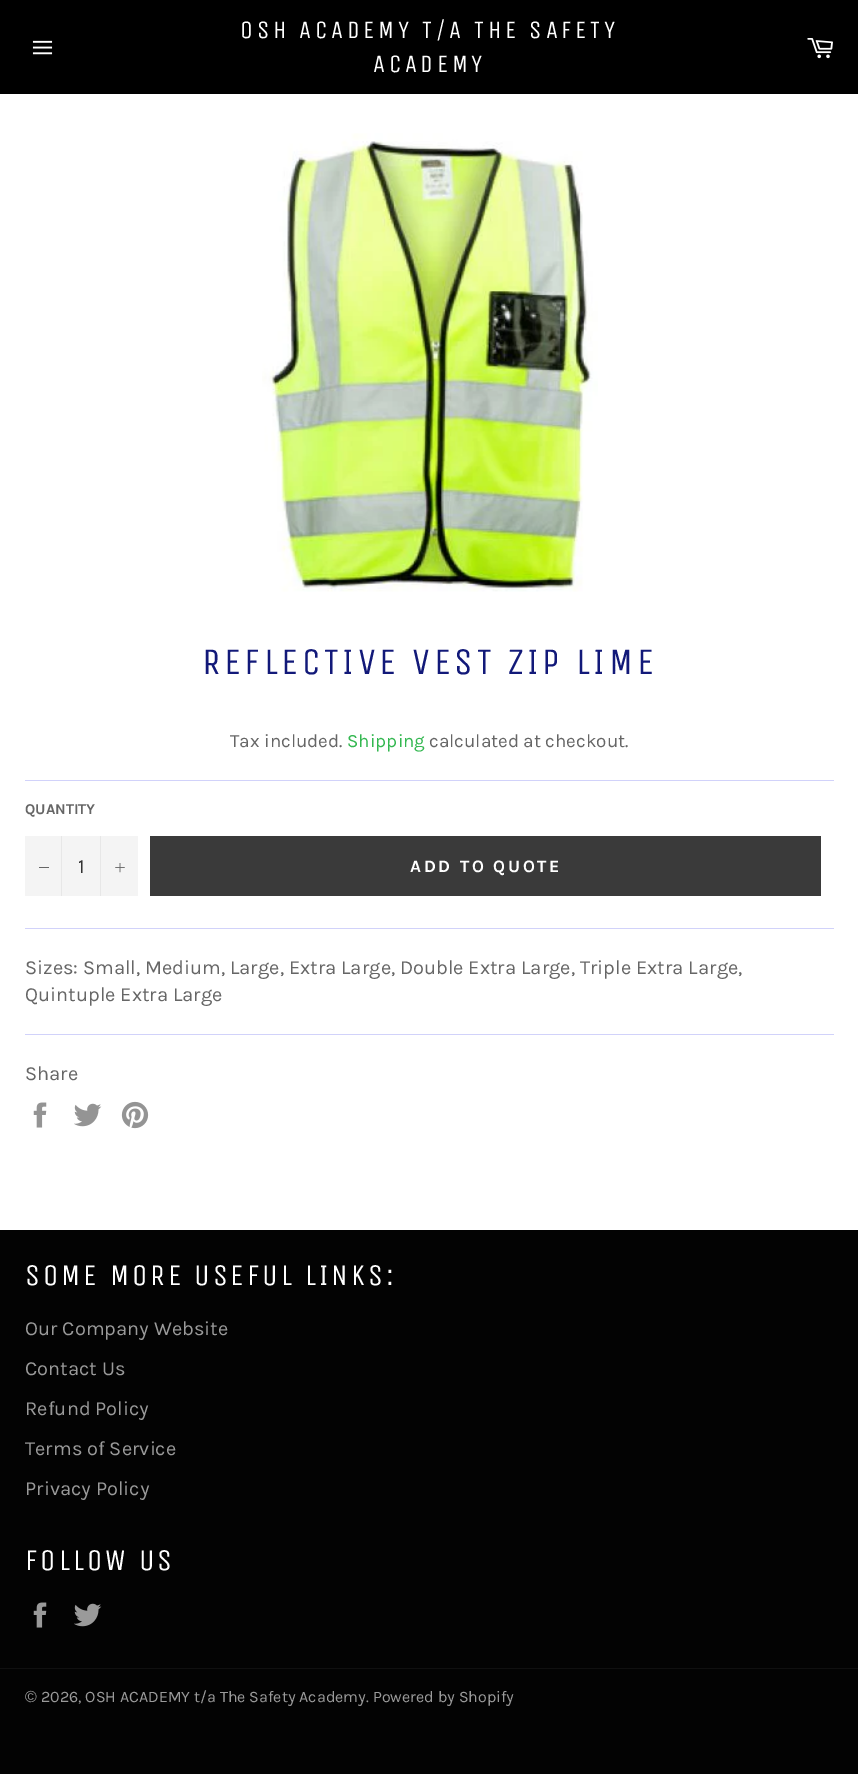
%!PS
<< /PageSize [858 1774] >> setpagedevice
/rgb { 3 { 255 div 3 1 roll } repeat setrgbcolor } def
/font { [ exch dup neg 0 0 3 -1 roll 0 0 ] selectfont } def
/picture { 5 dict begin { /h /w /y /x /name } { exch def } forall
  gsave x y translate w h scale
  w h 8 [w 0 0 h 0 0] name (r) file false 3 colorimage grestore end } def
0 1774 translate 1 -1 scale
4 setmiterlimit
3 3 3 rgb
0 0 858 1774 rectfill
0 0 0 rgb
0 0 858 94 rectfill
(img/1.rgb) 32 40 21 15 picture
(img/2.rgb) 807 38 26 21 picture
255 255 255 rgb
0 94 858 1136 rectfill
(img/3.rgb) 262 133 336 459 picture
[
  [25 780 809 1 209 210 250]
  [25 836 113 60 244 244 244]
  [61 836 1 60 231 231 231]
  [39 867 10 1 102 102 102]
  [100 836 1 60 231 231 231]
] { aload pop rgb rectfill } forall
(img/4.rgb) 115 863 10 10 picture
[
  [150 836 671 60 58 58 58]
  [25 928 809 1 209 210 250]
  [25 1034 809 1 209 210 250]
] { aload pop rgb rectfill } forall
(img/5.rgb) 33 1102 14 26 picture
(img/6.rgb) 74 1103 28 24 picture
(img/7.rgb) 121 1101 28 28 picture
(img/8.rgb) 33 1602 14 26 picture
(img/9.rgb) 74 1603 28 24 picture
16 16 16 rgb
0 1668 858 1 rectfill
/UnicaOne-Regular 25 font
255 255 255 rgb
240 38 moveto 3.75 0 (OSH ACADEMY T/A THE SAFETY) ashow
373 72 moveto 3.75 0 (ACADEMY) ashow
/UnicaOne-Regular 37.5 font
18 25 121 rgb
202 674 moveto 3.75 0 (REFLECTIVE VEST ZIP LIME) ashow
/Karla-Regular 18.75 font
102 102 102 rgb
230 747 moveto (Tax included.) show
52 184 81 rgb
347 747 moveto (Shipping) show
102 102 102 rgb
429 747 moveto (calculated at checkout.) show
/Karla-Bold 15 font
25 814 moveto (QUANTITY) show
/Karla-Regular 20 font
51 51 51 rgb
78 873 moveto (1) show
/Karla-Bold 17.5 font
255 255 255 rgb
410 872 moveto 2.6 0 (ADD TO QUOTE) ashow
/Karla-Regular 20 font
102 102 102 rgb
[
  [(Sizes: Small, Medium, Large, Extra Large, Double Extra Large, Triple Extra Large,) 25 974]
  [(Quintuple Extra Large) 25 1001]
  [(Share) 25 1080]
] { aload pop moveto show } forall
/UnicaOne-Regular 30 font
255 255 255 rgb
25 1285 moveto 3 0 (SOME MORE USEFUL LINKS:) ashow
/Karla-Regular 20 font
154 154 154 rgb
[
  [(Our Company Website) 25 1335]
  [(Contact Us) 25 1375]
  [(Refund Policy) 25 1415]
  [(Terms of Service) 25 1455]
  [(Privacy Policy) 25 1495]
] { aload pop moveto show } forall
/UnicaOne-Regular 30 font
255 255 255 rgb
25 1570 moveto 3 0 (FOLLOW US) ashow
/LiberationSans-Regular 16 font
154 154 154 rgb
25 1702 moveto (©) show
/Karla-Regular 16 font
41 1702 moveto (2026, OSH ACADEMY t/a The Safety Academy. Powered by Shopify) show
showpage
